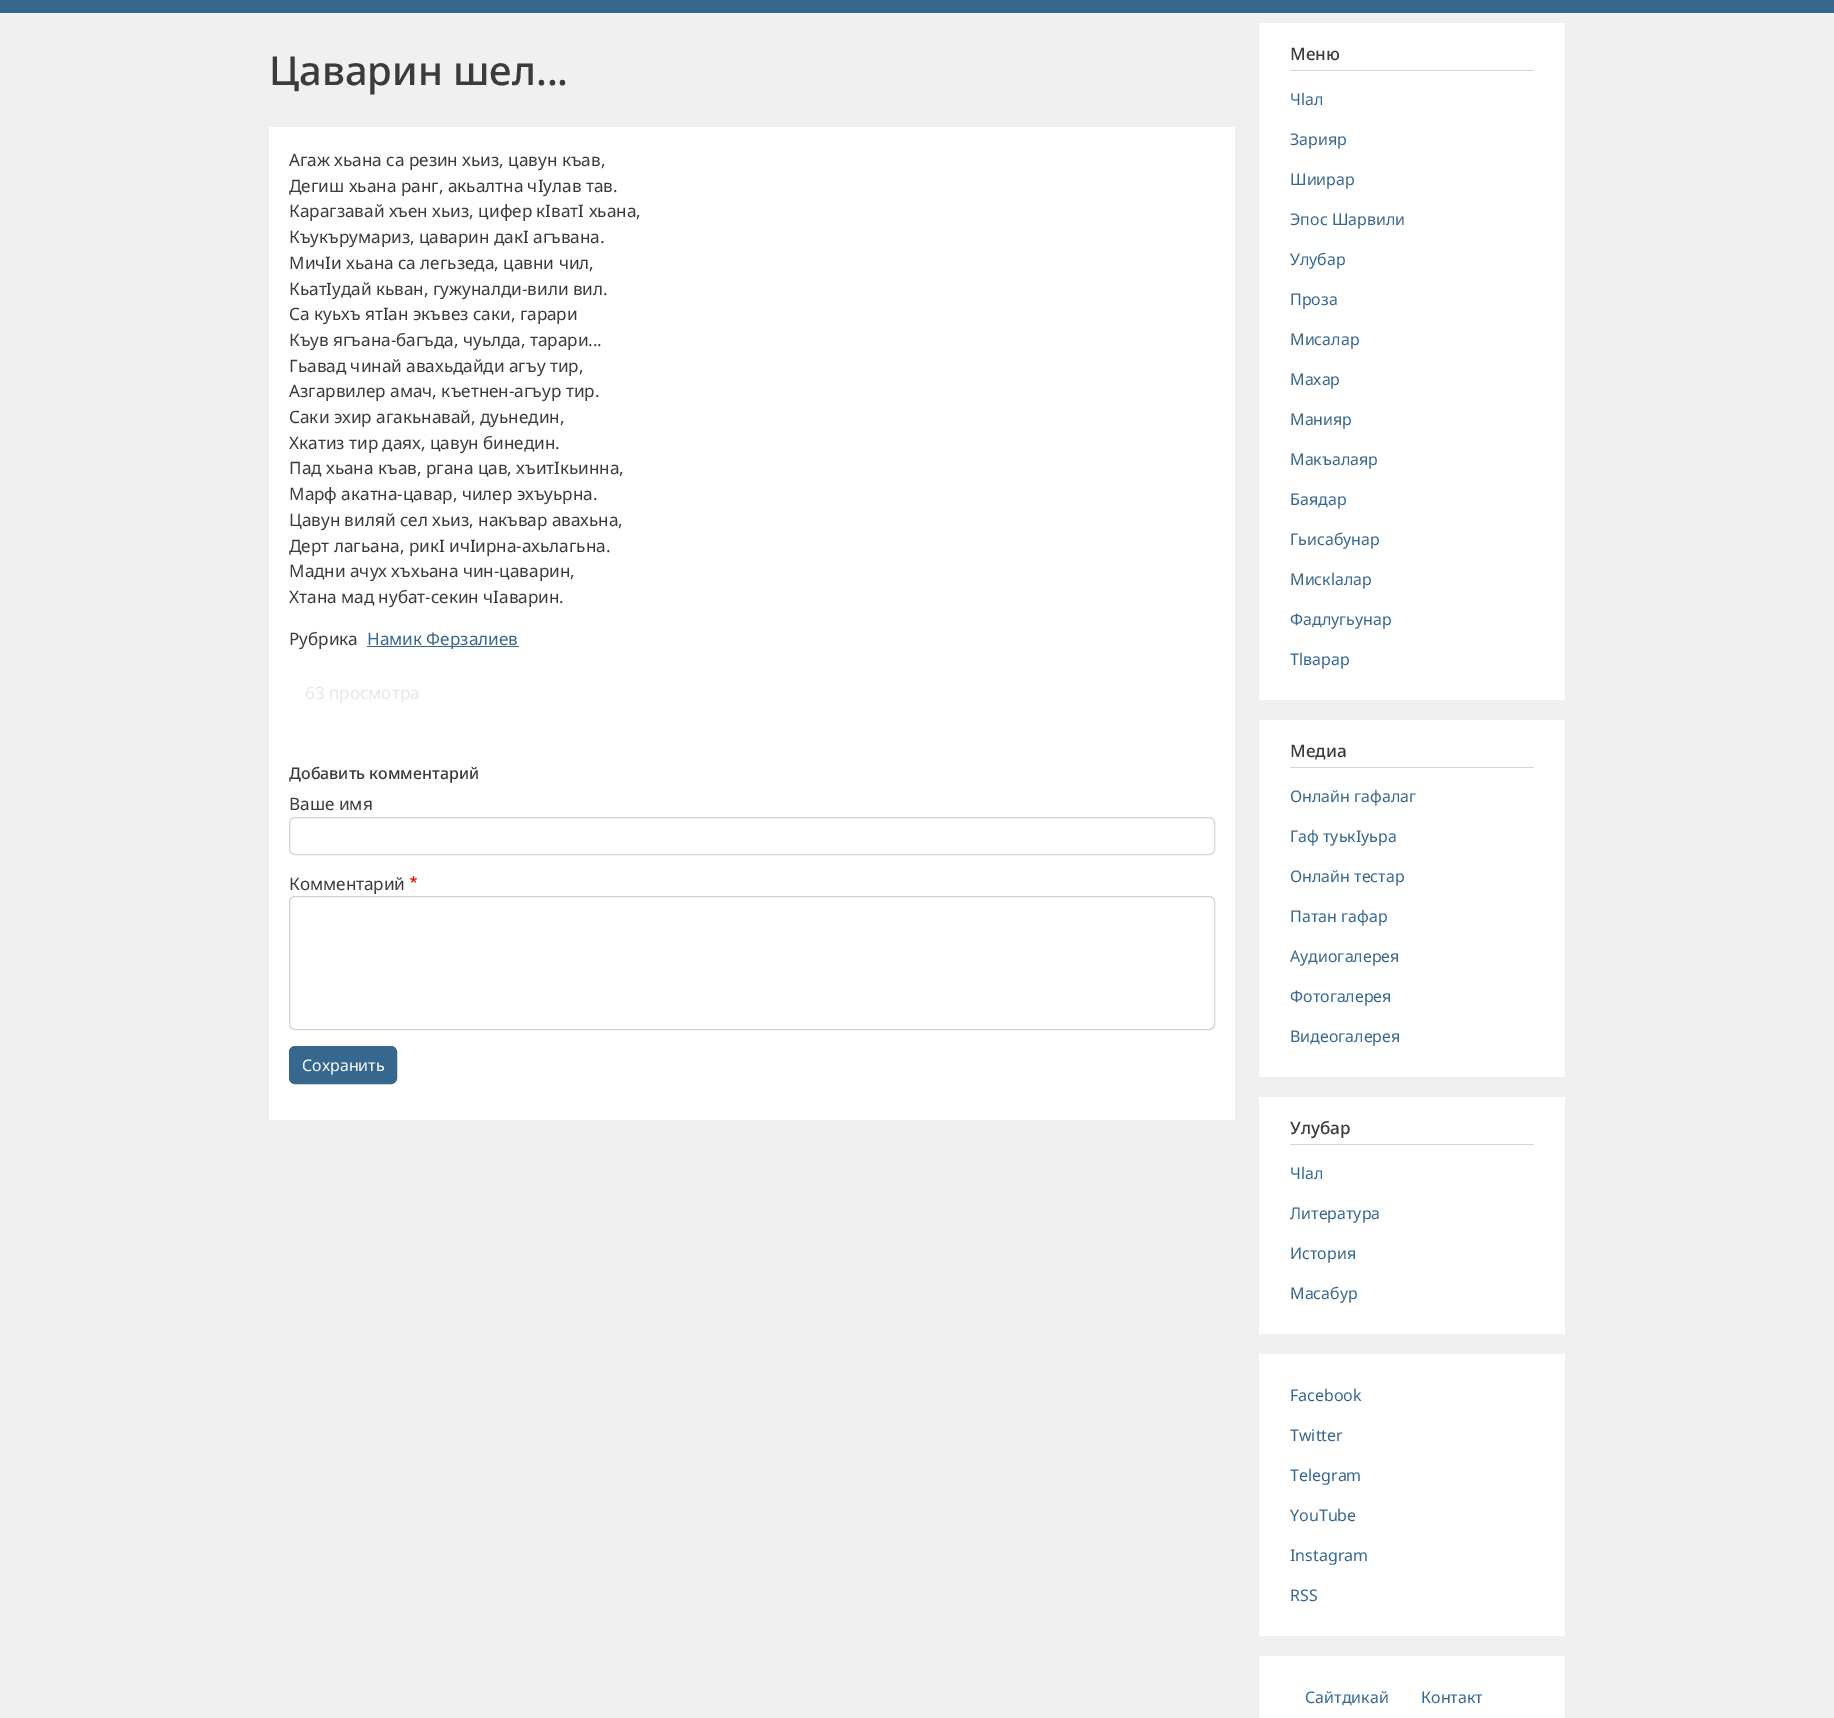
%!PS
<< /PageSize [1834 1718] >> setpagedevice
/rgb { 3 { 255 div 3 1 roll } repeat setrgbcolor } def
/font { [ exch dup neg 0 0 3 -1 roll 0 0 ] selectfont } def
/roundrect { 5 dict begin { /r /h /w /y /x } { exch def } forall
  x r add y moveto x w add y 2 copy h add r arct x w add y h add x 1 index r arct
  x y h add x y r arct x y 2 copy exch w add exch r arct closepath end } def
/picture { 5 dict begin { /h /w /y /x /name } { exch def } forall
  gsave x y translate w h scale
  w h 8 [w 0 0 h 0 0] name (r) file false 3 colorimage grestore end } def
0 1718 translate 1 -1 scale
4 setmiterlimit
240 240 240 rgb
0 0 1834 1718 rectfill
[
  [0 0 1834 13 54 103 143]
  [269 127 966 993 255 255 255]
  [367 646 152 1 54 103 143]
] { aload pop rgb rectfill } forall
206 212 218 rgb
289.5 817.5 925 37 5.5 roundrect stroke
(img/1.rgb) 410 876 7 7 picture
289.5 896.5 925 133 5.5 roundrect stroke
54 103 143 rgb
289.5 1046.5 107 37 5.5 roundrect gsave fill grestore
stroke
[
  [1259 23 306 677 255 255 255]
  [1290 70 244 1 214 214 214]
  [1259 720 306 357 255 255 255]
  [1290 767 244 1 214 214 214]
  [1259 1097 306 237 255 255 255]
  [1290 1144 244 1 214 214 214]
  [1259 1354 306 282 255 255 255]
  [1259 1656 306 62 255 255 255]
] { aload pop rgb rectfill } forall
/NotoSans-Medium 40 font
59 59 59 rgb
269 85 moveto (Цаварин шел...) show
/NotoSans-Regular 17.1 font
[
  [(Агаж хьана са резин хьиз, цавун къав,) 289 166]
  [(Дегиш хьана ранг, акьалтна чIулав тав.) 289 192]
  [(Карагзавай хъен хьиз, цифер кIватI хьана,) 289 217]
  [(Къукърумариз, цаварин дакI агъвана.) 289 243]
  [(МичIи хьана са легьзеда, цавни чил,) 289 269]
  [(КьатIудай кьван, гужуналди-вили вил.) 289 295]
  [(Са куьхъ ятIан экъвез саки, гарари) 289 320]
  [(Къув ягъана-багъда, чуьлда, тарари...) 289 346]
  [(Гьавад чинай авахьдайди агъу тир,) 289 372]
  [(Азгарвилер амач, къетнен-агъур тир.) 289 397]
  [(Саки эхир агакьнавай, дуьнедин,) 289 423]
  [(Хкатиз тир даях, цавун бинедин.) 289 449]
  [(Пад хьана къав, ргана цав, хъитIкьинна,) 289 474]
  [(Марф акатна-цавар, чилер эхъуьрна.) 289 500]
  [(Цавун виляй сел хьиз, накъвар авахьна,) 289 526]
  [(Дерт лагьана, рикI ичIирна-ахьлагьна.) 289 552]
  [(Мадни ачух хъхьана чин-цаварин,) 289 577]
  [(Хтана мад нубат-секин чIаварин.) 289 603]
  [(Рубрика) 289 645]
] { aload pop moveto show } forall
54 103 143 rgb
367 645 moveto (Намик Ферзалиев) show
231 231 231 rgb
305 699 moveto (63 просмотра) show
/NotoSans-Medium 16 font
59 59 59 rgb
289 779 moveto (Добавить комментарий) show
/NotoSans-Regular 17.1 font
289 810 moveto (Ваше имя) show
289 890 moveto (Комментарий) show
/NotoSans-Regular 16 font
255 255 255 rgb
302 1071 moveto (Сохранить) show
/NotoSans-Medium 17.1 font
59 59 59 rgb
1290 60 moveto (Меню) show
/NotoSans-Regular 16 font
54 103 143 rgb
[
  [(Чlал) 1290 105]
  [(Зарияр) 1290 145]
  [(Шиирар) 1290 185]
  [(Эпос Шарвили) 1290 225]
  [(Улубар) 1290 265]
  [(Проза) 1290 305]
  [(Мисалар) 1290 345]
  [(Махар) 1290 385]
  [(Манияр) 1290 425]
  [(Макъалаяр) 1290 465]
  [(Баядар) 1290 505]
  [(Гьисабунар) 1290 545]
  [(Мискlалар) 1290 585]
  [(Фадлугьунар) 1290 625]
  [(Тlварар) 1290 665]
] { aload pop moveto show } forall
/NotoSans-Medium 17.1 font
59 59 59 rgb
1290 757 moveto (Медиа) show
/NotoSans-Regular 16 font
54 103 143 rgb
[
  [(Онлайн гафалаг) 1290 802]
  [(Гаф туькIуьра) 1290 842]
  [(Онлайн тестар) 1290 882]
  [(Патан гафар) 1290 922]
  [(Аудиогалерея) 1290 962]
  [(Фотогалерея) 1290 1002]
  [(Видеогалерея) 1290 1042]
] { aload pop moveto show } forall
/NotoSans-Medium 17.1 font
59 59 59 rgb
1290 1134 moveto (Улубар) show
/NotoSans-Regular 16 font
54 103 143 rgb
[
  [(Чlал) 1290 1179]
  [(Литература) 1290 1219]
  [(История) 1290 1259]
  [(Масабур) 1290 1299]
  [(Facebook) 1290 1401]
  [(Twitter) 1290 1441]
  [(Telegram) 1290 1481]
  [(YouTube) 1290 1521]
  [(Instagram) 1290 1561]
  [(RSS) 1290 1601]
  [(Сайтдикай) 1305 1703]
  [(Контакт) 1421 1703]
] { aload pop moveto show } forall
showpage
